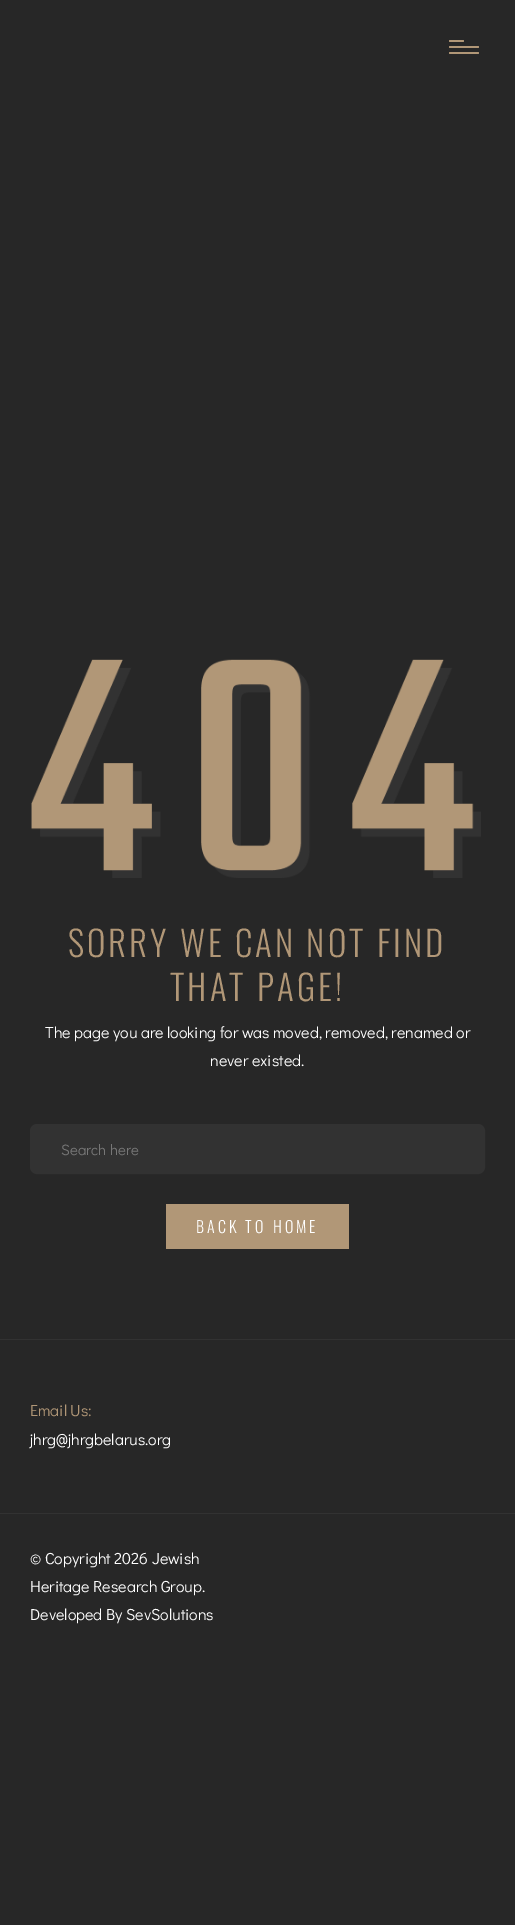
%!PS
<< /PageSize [515 1925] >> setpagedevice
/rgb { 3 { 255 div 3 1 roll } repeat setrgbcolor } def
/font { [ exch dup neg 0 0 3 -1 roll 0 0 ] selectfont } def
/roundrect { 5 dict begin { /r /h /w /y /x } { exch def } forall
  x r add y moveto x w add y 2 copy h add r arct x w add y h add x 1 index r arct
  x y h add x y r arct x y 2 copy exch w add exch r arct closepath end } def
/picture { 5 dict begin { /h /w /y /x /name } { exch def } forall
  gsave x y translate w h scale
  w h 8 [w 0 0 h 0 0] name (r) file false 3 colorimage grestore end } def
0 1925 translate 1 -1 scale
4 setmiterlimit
39 39 39 rgb
0 0 515 1925 rectfill
177 151 119 rgb
449 40 15 2 1 roundrect fill
449 46 30 2 1 roundrect fill
449 52 30 2 1 roundrect fill
(img/1.rgb) 31 659 450 219 picture
50 50 50 rgb
30.5 1124.5 454 49 6.5 roundrect gsave fill grestore
stroke
[
  [166 1204 183 45 177 151 119]
  [0 1339 515 1 50 50 50]
  [0 1513 515 1 50 50 50]
] { aload pop rgb rectfill } forall
/Oswald-Light 35 font
177 151 119 rgb
68 957 moveto 3 0 (SORRY WE CAN NOT FIND) ashow
170 1001 moveto 3 0 (THAT PAGE!) ashow
/DidactGothic-Regular 16 font
255 255 255 rgb
45 1038 moveto (The page you are looking for was moved, removed, renamed or) show
210 1066 moveto (never existed.) show
/DidactGothic-Regular 15 font
119 119 119 rgb
61 1155 moveto (Search here) show
/Oswald-Light 16 font
255 255 255 rgb
196 1233 moveto 3 0 (BACK TO HOME) ashow
/DidactGothic-Regular 16 font
177 151 119 rgb
30 1416 moveto (Email Us:) show
255 255 255 rgb
[
  [(jhrg@jhrgbelarus.org) 30 1445]
  [(© Copyright 2026 Jewish) 30 1564]
  [(Heritage Research Group.) 30 1592]
  [(Developed By SevSolutions) 30 1620]
] { aload pop moveto show } forall
showpage
